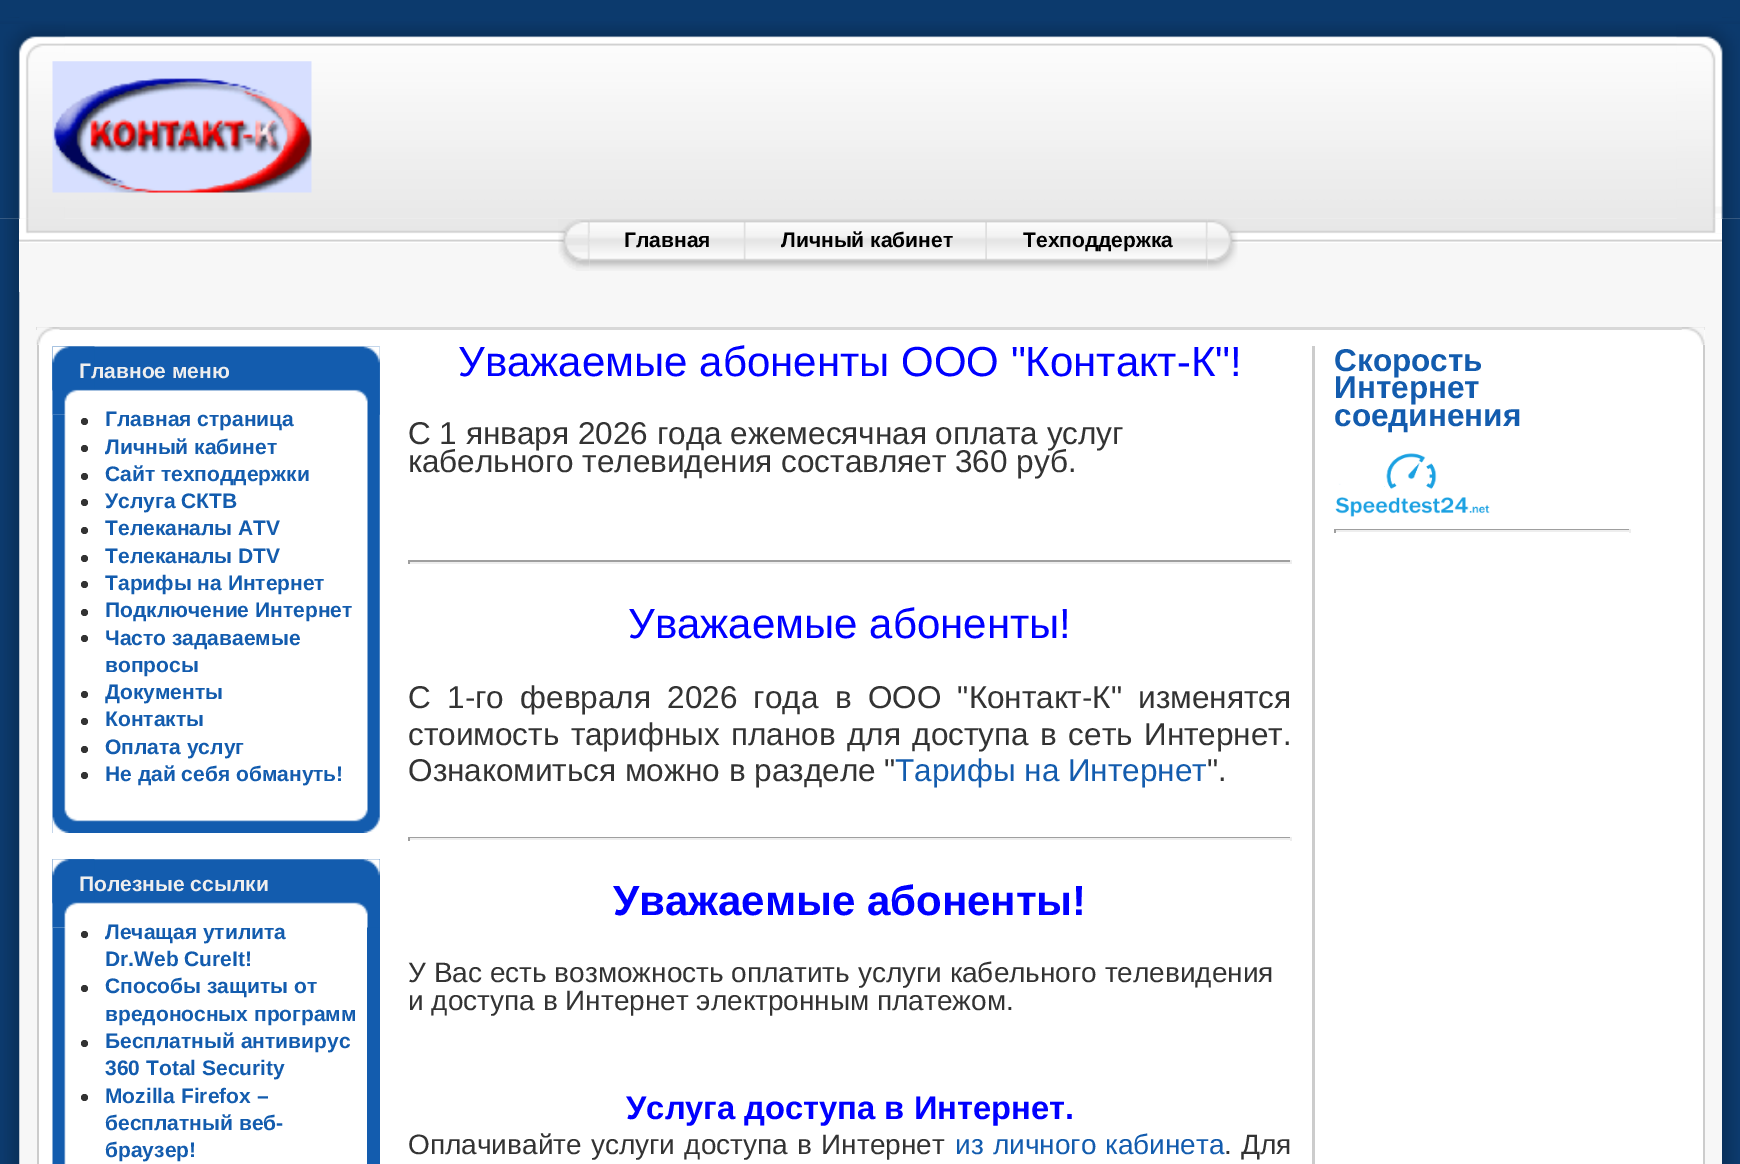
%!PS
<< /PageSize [1740 1164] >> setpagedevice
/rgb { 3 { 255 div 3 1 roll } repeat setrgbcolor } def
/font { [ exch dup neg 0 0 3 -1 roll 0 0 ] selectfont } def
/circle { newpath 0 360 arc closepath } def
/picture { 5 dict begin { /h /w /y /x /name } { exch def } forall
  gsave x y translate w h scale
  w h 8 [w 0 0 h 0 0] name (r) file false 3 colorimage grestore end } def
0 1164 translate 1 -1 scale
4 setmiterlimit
12 58 109 rgb
0 0 1740 1164 rectfill
247 247 247 rgb
19 218 1703 946 rectfill
(img/1.rgb) 0 17 20 1147 picture
(img/2.rgb) 1722 17 18 1147 picture
(img/3.rgb) 0 17 1740 202 picture
19 219 1 73 rectfill
(img/7.rgb) 19 219 1703 24 picture
(img/8.rgb) 19 218 10 24 picture
(img/4.rgb) 0 24 65 195 picture
(img/9.rgb) 1712 218 10 15 picture
(img/5.rgb) 1676 24 64 195 picture
(img/6.rgb) 52 61 260 132 picture
(img/10.rgb) 558 219 32 52 picture
(img/11.rgb) 589 218 619 53 picture
(img/12.rgb) 743 222 3 38 picture
(img/13.rgb) 985 222 2 38 picture
(img/15.rgb) 1207 218 31 53 picture
(img/14.rgb) 1205 221 3 39 picture
255 255 255 rgb
37 330 1668 834 rectfill
216 216 216 rgb
36 327 1669 3 rectfill
(img/16.rgb) 36 327 24 18 picture
(img/17.rgb) 1681 327 24 18 picture
204 204 204 rgb
1703 345 2 819 rectfill
37 345 2 819 rectfill
(img/18.rgb) 52 346 328 487 picture
(img/19.rgb) 52 346 25 487 picture
(img/20.rgb) 52 346 328 69 picture
(img/21.rgb) 52 346 43 69 picture
51 51 51 rgb
84.5 421.5 3.5 circle fill
84.5 448.5 3.5 circle fill
84.5 476.5 3.5 circle fill
84.5 502.5 3.5 circle fill
84.5 530.5 3.5 circle fill
84.5 558.5 3.5 circle fill
84.5 584.5 3.5 circle fill
84.5 612.5 3.5 circle fill
84.5 638.5 3.5 circle fill
84.5 694.5 3.5 circle fill
84.5 721.5 3.5 circle fill
84.5 749.5 3.5 circle fill
84.5 775.5 3.5 circle fill
19 92 174 rgb
367 859 13 305 rectfill
(img/22.rgb) 52 859 14 305 picture
(img/23.rgb) 52 859 328 69 picture
(img/24.rgb) 52 859 43 69 picture
51 51 51 rgb
84.5 934.5 3.5 circle fill
84.5 988.5 3.5 circle fill
84.5 1043.5 3.5 circle fill
84.5 1097.5 3.5 circle fill
[
  [408 560 884 2 159 159 159]
  [1290 560 2 4 238 238 238]
  [408 562 884 2 238 238 238]
  [408 560 2 4 159 159 159]
  [408 837 884 1 159 159 159]
  [1290 837 2 4 238 238 238]
  [408 838 884 2 238 238 238]
  [408 837 2 4 159 159 159]
  [1312 346 3 818 204 204 204]
] { aload pop rgb rectfill } forall
(img/25.rgb) 1335 453 155 64 picture
[
  [1334 529 297 1 159 159 159]
  [1629 529 2 4 238 238 238]
  [1334 530 297 2 238 238 238]
  [1334 529 2 4 159 159 159]
] { aload pop rgb rectfill } forall
/LiberationSans-Bold 21 font
0 0 0 rgb
[
  [(Главная) 624 247]
  [(Личный кабинет) 781 247]
  [(Техподдержка) 1023 247]
] { aload pop moveto show } forall
238 238 238 rgb
79 378 moveto (Главное меню) show
19 92 174 rgb
[
  [(Главная страница) 105 426]
  [(Личный кабинет) 105 454]
  [(Сайт техподдержки) 105 481]
  [(Услуга СКТВ) 105 508]
  [(Телеканалы ATV) 105 535]
  [(Телеканалы DTV) 105 563]
  [(Тарифы на Интернет) 105 590]
  [(Подключение Интернет) 105 617]
  [(Часто задаваемые) 105 645]
  [(вопросы) 105 672]
  [(Документы) 105 699]
  [(Контакты) 105 726]
  [(Оплата услуг) 105 754]
  [(Не дай себя обмануть!) 105 781]
] { aload pop moveto show } forall
238 238 238 rgb
79 891 moveto (Полезные ссылки) show
19 92 174 rgb
[
  [(Лечащая утилита) 105 939]
  [(Dr.Web CureIt!) 105 966]
  [(Способы защиты от) 105 993]
  [(вредоносных программ) 105 1021]
  [(Бесплатный антивирус) 105 1048]
  [(360 Total Security) 105 1075]
  [(Mozilla Firefox –) 105 1103]
  [(бесплатный веб-) 105 1130]
  [(браузер!) 105 1157]
] { aload pop moveto show } forall
/LiberationSans-Regular 42 font
0 0 255 rgb
458 376 moveto (Уважаемые абоненты ООО "Контакт-К"!) show
/LiberationSans-Regular 31.5 font
51 51 51 rgb
408 444 moveto (С 1 января 2026 года ежемесячная оплата услуг) show
408 472 moveto (кабельного телевидения составляет 360 руб.) show
/LiberationSans-Regular 42 font
0 0 255 rgb
628 638 moveto (Уважаемые абоненты!) show
/LiberationSans-Regular 31.5 font
51 51 51 rgb
408 708 moveto 7.5 0 32 (С 1-го февраля 2026 года в ООО "Контакт-К" изменятся) widthshow
408 745 moveto 2.75 0 32 (стоимость тарифных планов для доступа в сеть Интернет.) widthshow
408 781 moveto (Ознакомиться можно в разделе ") show
19 92 174 rgb
895 781 moveto (Тарифы на Интернет) show
51 51 51 rgb
1207 781 moveto (".) show
/LiberationSans-Bold 42 font
0 0 255 rgb
613 915 moveto (Уважаемые абоненты!) show
/LiberationSans-Regular 28 font
51 51 51 rgb
408 982 moveto (У Вас есть возможность оплатить услуги кабельного телевидения) show
408 1010 moveto (и доступа в Интернет электронным платежом.) show
/LiberationSans-Bold 32.7 font
0 0 255 rgb
626 1119 moveto (Услуга доступа в Интернет.) show
/LiberationSans-Regular 28 font
51 51 51 rgb
408 1154 moveto 1.5 0 32 (Оплачивайте услуги доступа в Интернет) widthshow
19 92 174 rgb
955 1154 moveto 1.5 0 32 (из личного кабинета) widthshow
51 51 51 rgb
1224 1154 moveto 1.5 0 32 (. Для) widthshow
/LiberationSans-Bold 31.5 font
19 92 174 rgb
[
  [(Скорость) 1334 371]
  [(Интернет) 1334 398]
  [(соединения) 1334 426]
] { aload pop moveto show } forall
showpage
